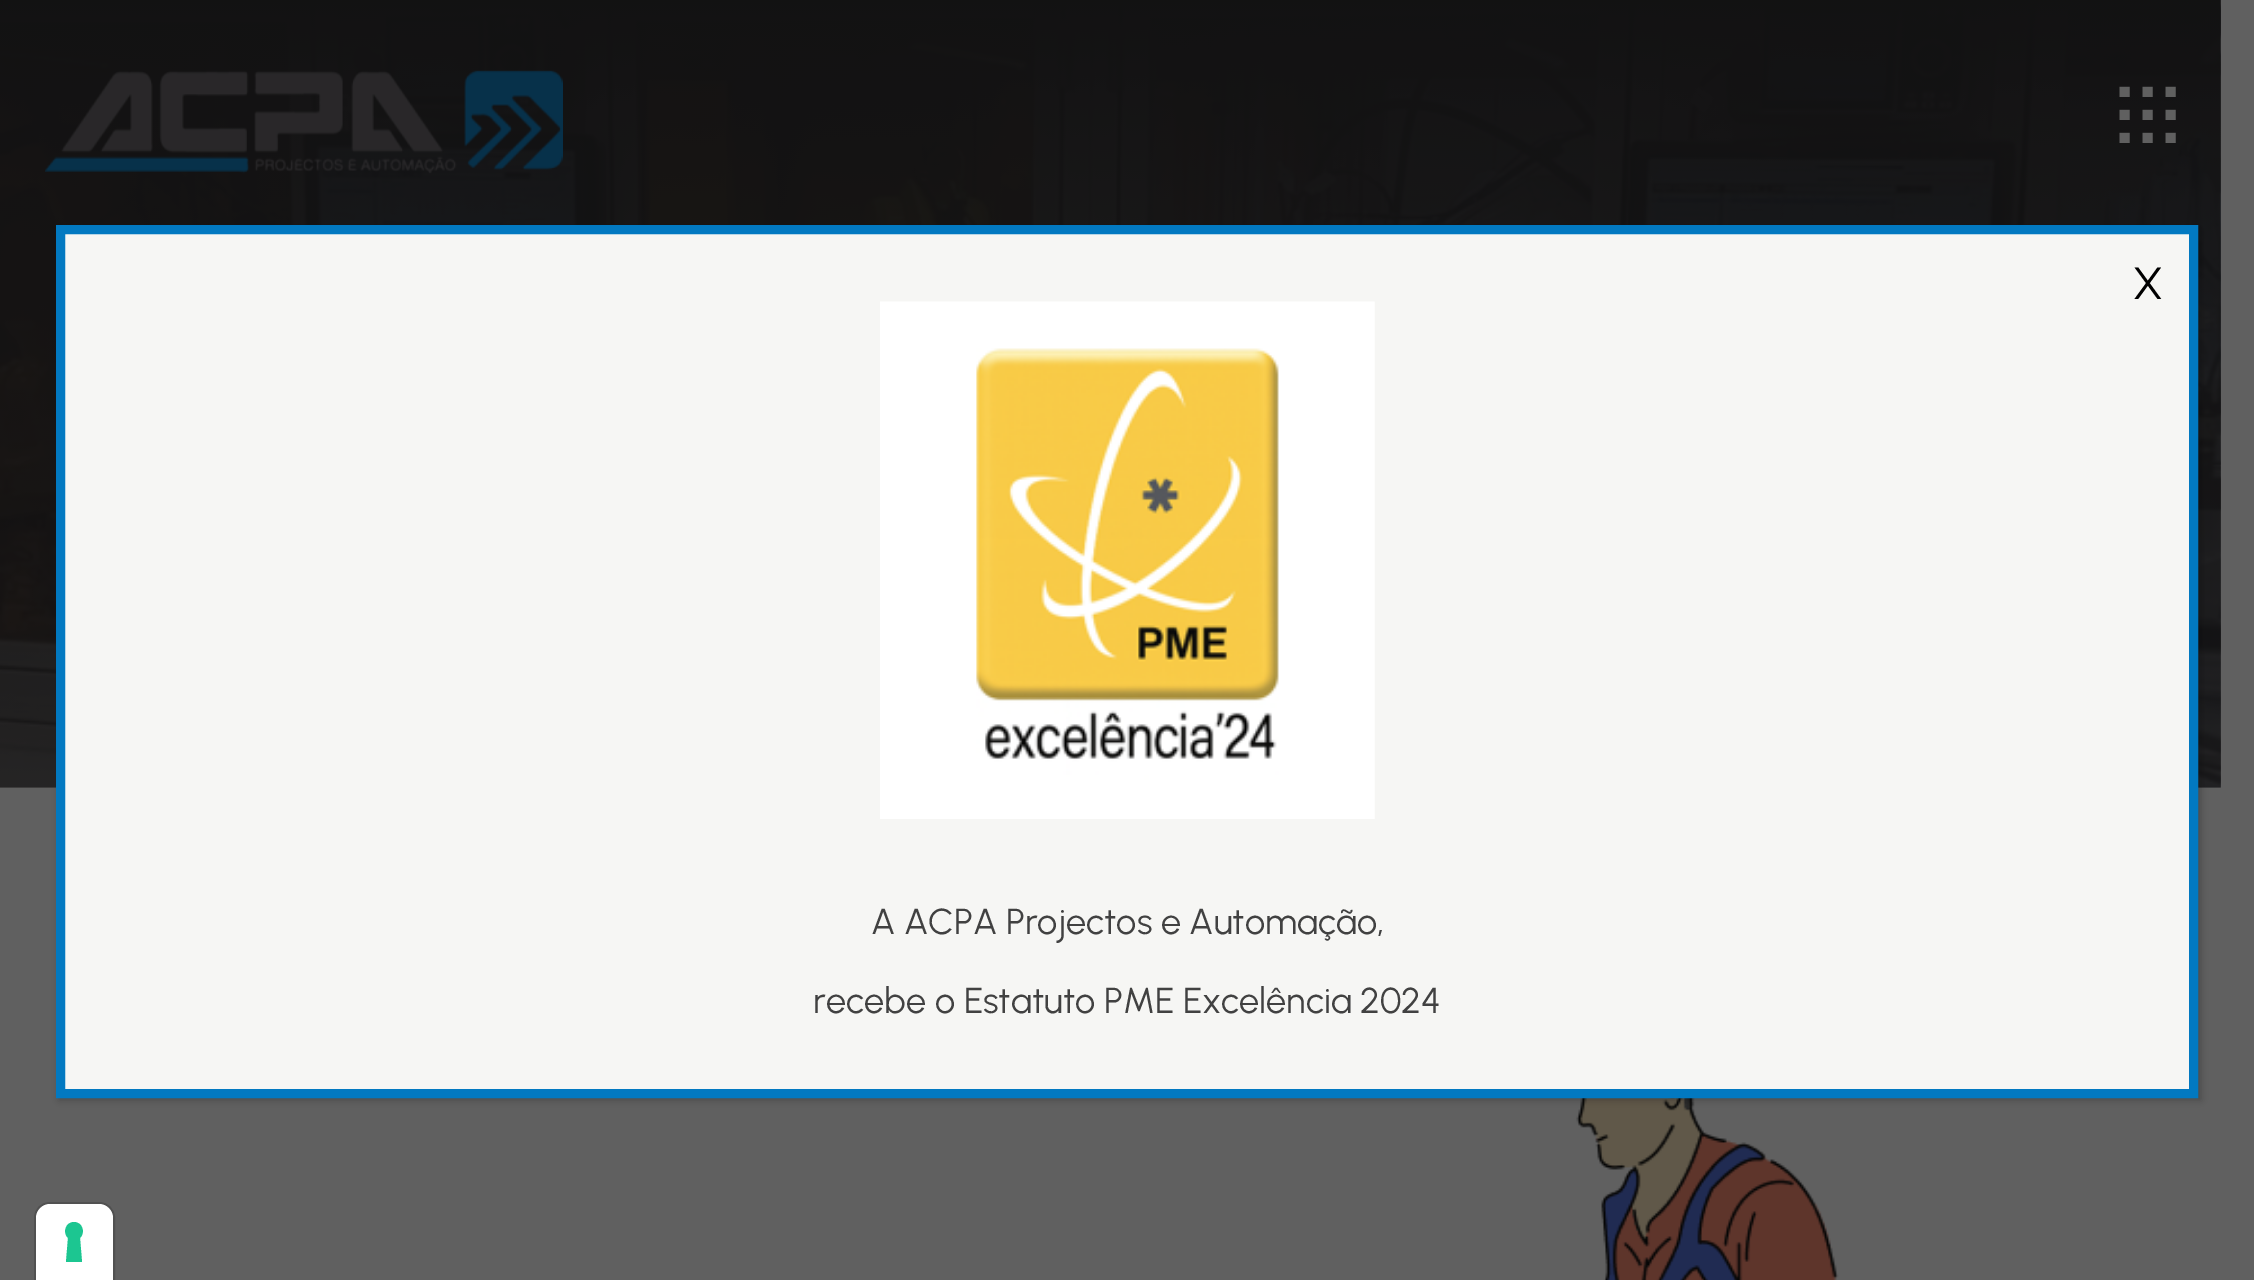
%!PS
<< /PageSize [2254 1280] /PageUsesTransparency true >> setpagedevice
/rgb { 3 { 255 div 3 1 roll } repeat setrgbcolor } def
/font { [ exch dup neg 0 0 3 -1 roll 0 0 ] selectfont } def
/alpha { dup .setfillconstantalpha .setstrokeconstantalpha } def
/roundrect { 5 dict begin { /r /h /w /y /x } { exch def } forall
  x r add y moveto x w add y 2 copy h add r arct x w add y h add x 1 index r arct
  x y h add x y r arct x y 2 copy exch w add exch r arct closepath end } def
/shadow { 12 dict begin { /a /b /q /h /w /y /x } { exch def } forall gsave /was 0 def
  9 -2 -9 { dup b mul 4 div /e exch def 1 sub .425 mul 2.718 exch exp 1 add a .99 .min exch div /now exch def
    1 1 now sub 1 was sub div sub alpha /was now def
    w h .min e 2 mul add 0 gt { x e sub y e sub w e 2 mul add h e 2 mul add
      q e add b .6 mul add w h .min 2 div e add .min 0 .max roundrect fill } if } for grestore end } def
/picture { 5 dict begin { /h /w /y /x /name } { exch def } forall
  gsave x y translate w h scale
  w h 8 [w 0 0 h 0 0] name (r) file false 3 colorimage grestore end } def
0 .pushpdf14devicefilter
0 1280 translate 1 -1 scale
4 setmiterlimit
96 96 96 rgb
0 0 2254 1280 rectfill
(img/1.rgb) 0 0 2221 788 picture
(img/2.rgb) 45 70 518 104 picture
(img/3.rgb) 2119 86 57 57 picture
(img/4.rgb) 1576 1098 263 182 picture
2 2 2 rgb
59 227 2142 873 0 3.5 0.23 shadow
246 246 244 rgb
60.5 229.5 moveto 2193.5 229.5 lineto 2193.5 1093.5 lineto 60.5 1093.5 lineto closepath gsave fill grestore
2 121 193 rgb
9 setlinewidth
stroke
(img/5.rgb) 880 301 495 518 picture
81 81 81 rgb
2 setlinewidth
50 1203 moveto 99 1203 lineto 107.5 1203 114 1209.5 114 1218 curveto 114 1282 lineto 35 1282 lineto 35 1218 lineto 35 1209.5 41.5 1203 50 1203 curveto closepath stroke
255 255 255 rgb
50 1204 moveto 99 1204 lineto 106.5 1204 113 1210.5 113 1218 curveto 113 1280 lineto 36 1280 lineto 36 1218 lineto 36 1210.5 42.5 1204 50 1204 curveto closepath fill
28 198 145 rgb
74 1222 moveto 82 1222 86 1232 80 1238 curveto 82 1262 lineto 66 1262 lineto 68 1238 lineto 62 1232 66 1222 74 1222 curveto closepath eofill
/Urbanist-Regular 45 font
0 0 0 rgb
2133 299 moveto (X) show
/Urbanist-Regular 36 font
65 65 65 rgb
871 934 moveto (A ACPA Projectos e Automação,) show
813 1013 moveto (recebe o Estatuto PME Excelência 2024) show
.poppdf14devicefilter showpage
